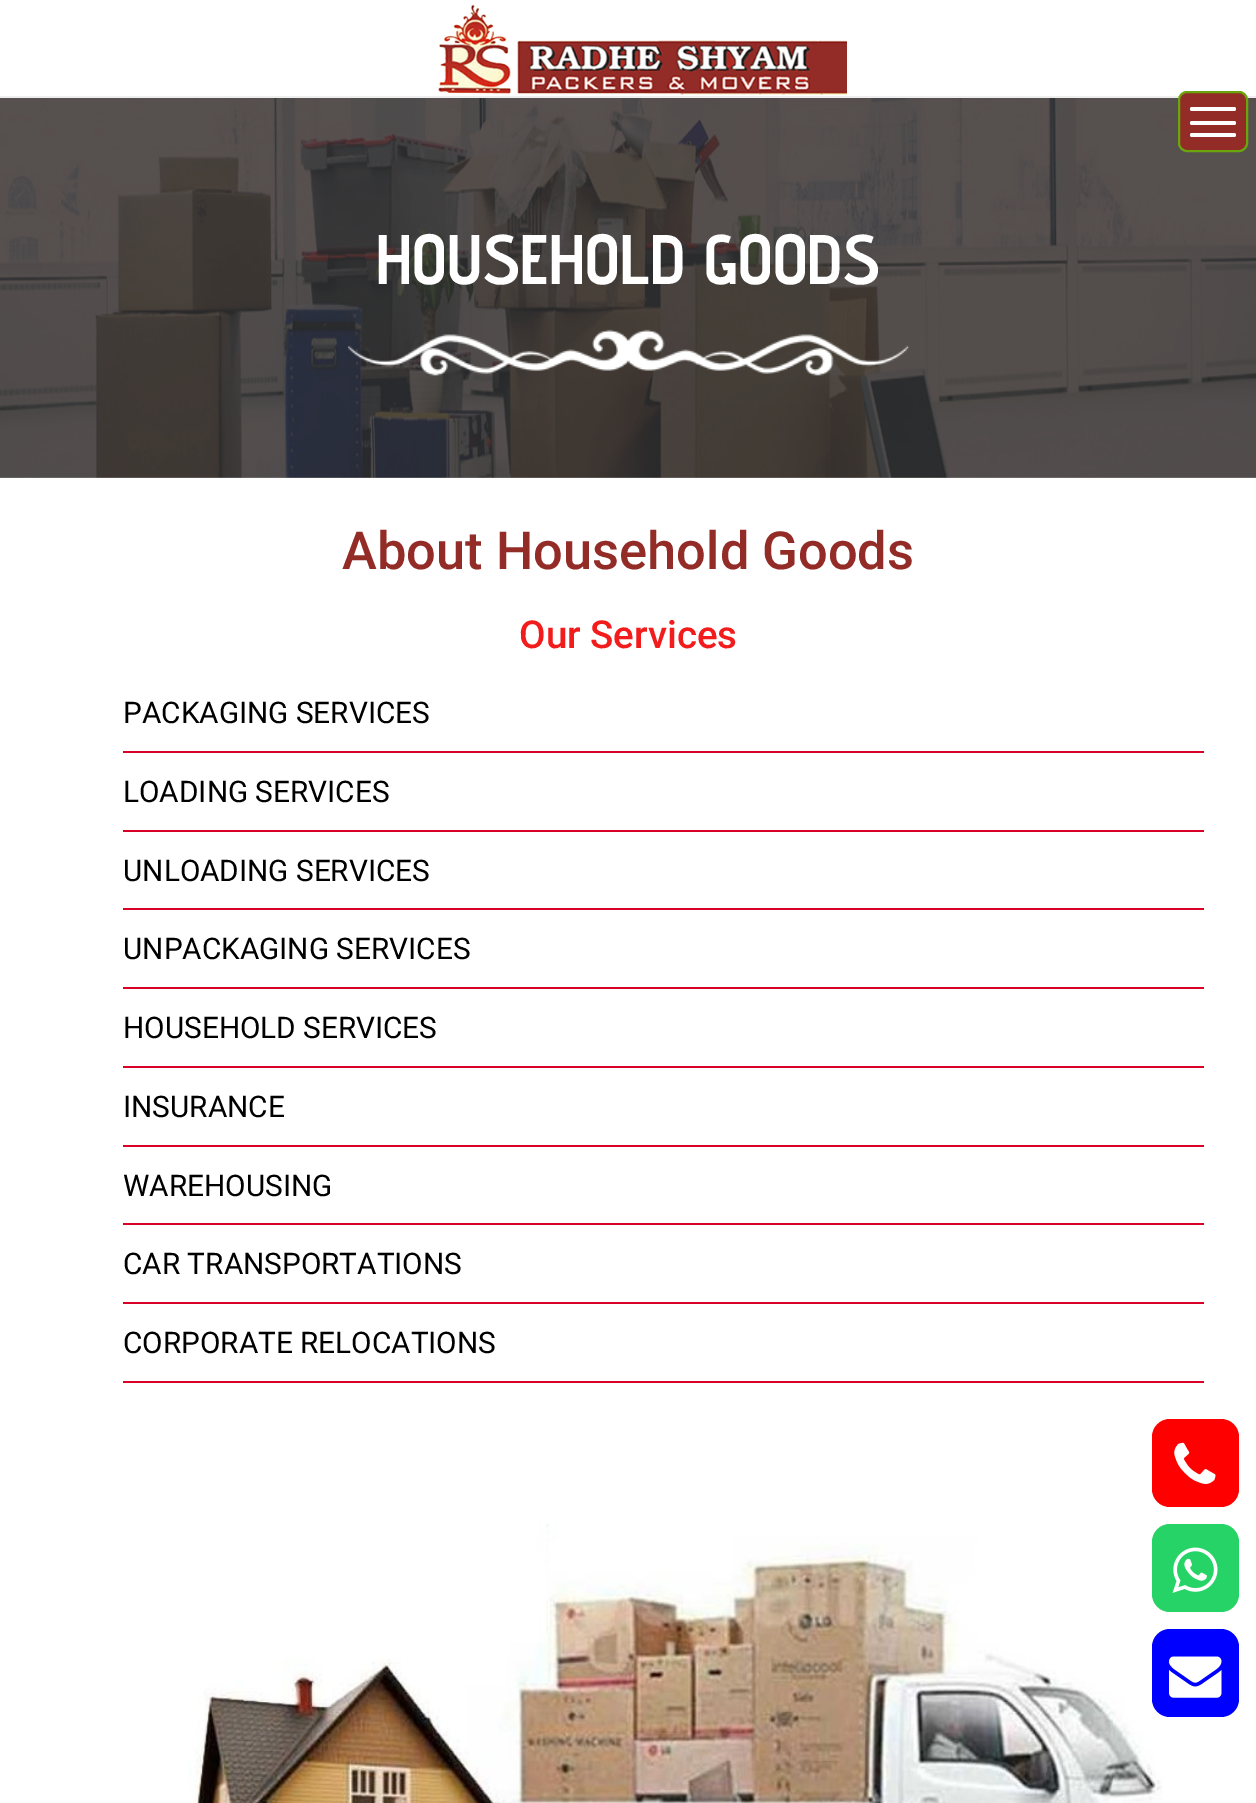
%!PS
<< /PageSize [1256 1803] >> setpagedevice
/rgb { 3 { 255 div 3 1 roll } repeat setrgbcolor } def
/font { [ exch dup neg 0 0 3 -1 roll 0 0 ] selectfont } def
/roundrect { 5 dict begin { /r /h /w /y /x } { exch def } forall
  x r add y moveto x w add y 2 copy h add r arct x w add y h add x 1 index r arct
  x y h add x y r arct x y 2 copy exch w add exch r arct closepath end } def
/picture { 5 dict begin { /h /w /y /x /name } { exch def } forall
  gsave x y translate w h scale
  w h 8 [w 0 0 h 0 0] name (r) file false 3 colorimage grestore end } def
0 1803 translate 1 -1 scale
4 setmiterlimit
255 255 255 rgb
0 0 1256 1803 rectfill
238 238 238 rgb
0 96 1256 2 rectfill
(img/1.rgb) 438 4 409 91 picture
(img/2.rgb) 0 98 1256 380 picture
147 43 39 rgb
1179 92 68 59 8 roundrect gsave fill grestore
106 165 14 rgb
2 setlinewidth
stroke
255 255 255 rgb
1190 107 46 4 2 roundrect fill
1190 121 46 4 2 roundrect fill
1190 133 46 4 2 roundrect fill
(img/3.rgb) 348 329 561 47 picture
[
  [123 751 1081 2 216 0 39]
  [123 830 1081 2 216 0 39]
  [123 908 1081 2 216 0 39]
  [123 987 1081 2 216 0 39]
  [123 1066 1081 2 216 0 39]
  [123 1145 1081 2 216 0 39]
  [123 1223 1081 2 216 0 39]
  [123 1302 1081 2 216 0 39]
  [123 1381 1081 2 216 0 39]
] { aload pop rgb rectfill } forall
(img/4.rgb) 188 1523 975 280 picture
255 0 0 rgb
1152 1419 87 88 18 roundrect fill
(img/5.rgb) 1174 1442 42 42 picture
37 211 102 rgb
1152 1524 87 88 18 roundrect fill
(img/6.rgb) 1172 1547 46 46 picture
0 0 255 rgb
1152 1629 87 88 18 roundrect fill
(img/7.rgb) 1169 1656 53 42 picture
/AdventPro-Bold 70 font
255 255 255 rgb
376 284 moveto (HOUSEHOLD GOODS) show
/Roboto-Medium 52.5 font
147 43 39 rgb
342 569 moveto (About Household Goods) show
/Roboto-Medium 38.5 font
243 28 28 rgb
519 648 moveto (Our Services) show
/Roboto-Regular 29.75 font
0 0 0 rgb
[
  [(PACKAGING SERVICES) 123 723]
  [(LOADING SERVICES) 123 802]
  [(UNLOADING SERVICES) 123 881]
  [(UNPACKAGING SERVICES) 123 959]
  [(HOUSEHOLD SERVICES) 123 1038]
  [(INSURANCE) 123 1117]
  [(WAREHOUSING) 123 1196]
  [(CAR TRANSPORTATIONS) 123 1274]
  [(CORPORATE RELOCATIONS) 123 1353]
] { aload pop moveto show } forall
showpage
